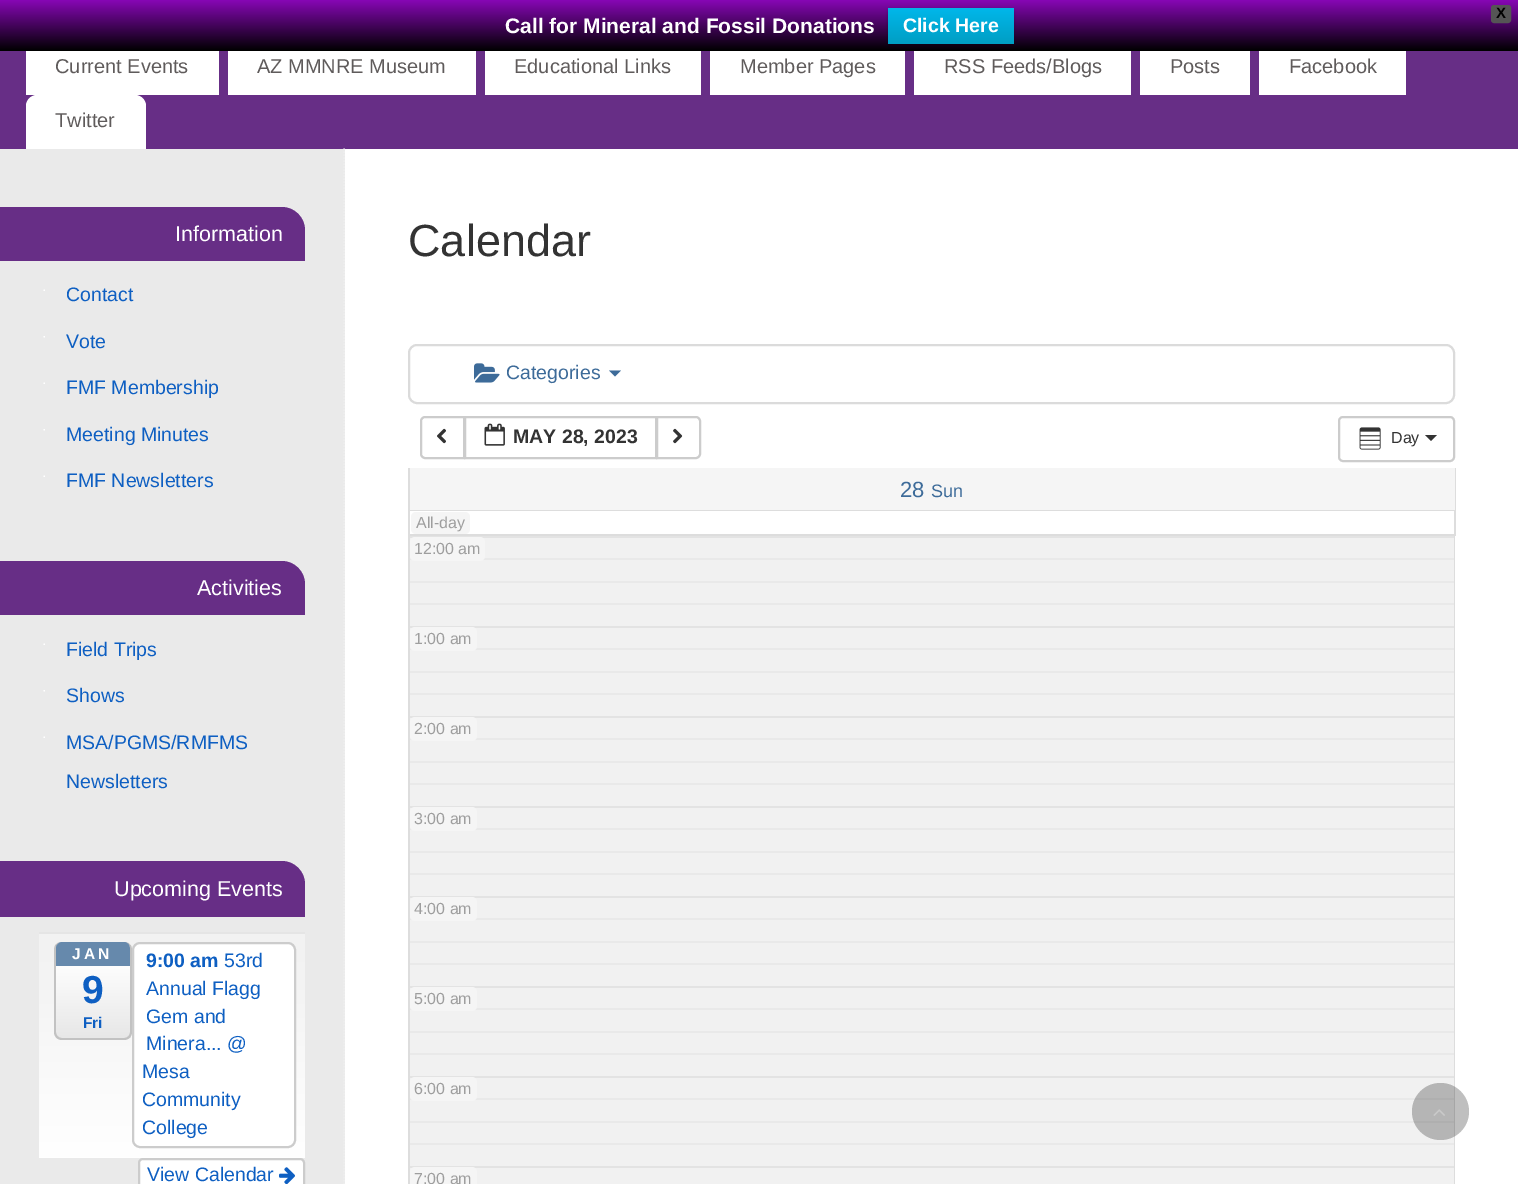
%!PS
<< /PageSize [1518 1184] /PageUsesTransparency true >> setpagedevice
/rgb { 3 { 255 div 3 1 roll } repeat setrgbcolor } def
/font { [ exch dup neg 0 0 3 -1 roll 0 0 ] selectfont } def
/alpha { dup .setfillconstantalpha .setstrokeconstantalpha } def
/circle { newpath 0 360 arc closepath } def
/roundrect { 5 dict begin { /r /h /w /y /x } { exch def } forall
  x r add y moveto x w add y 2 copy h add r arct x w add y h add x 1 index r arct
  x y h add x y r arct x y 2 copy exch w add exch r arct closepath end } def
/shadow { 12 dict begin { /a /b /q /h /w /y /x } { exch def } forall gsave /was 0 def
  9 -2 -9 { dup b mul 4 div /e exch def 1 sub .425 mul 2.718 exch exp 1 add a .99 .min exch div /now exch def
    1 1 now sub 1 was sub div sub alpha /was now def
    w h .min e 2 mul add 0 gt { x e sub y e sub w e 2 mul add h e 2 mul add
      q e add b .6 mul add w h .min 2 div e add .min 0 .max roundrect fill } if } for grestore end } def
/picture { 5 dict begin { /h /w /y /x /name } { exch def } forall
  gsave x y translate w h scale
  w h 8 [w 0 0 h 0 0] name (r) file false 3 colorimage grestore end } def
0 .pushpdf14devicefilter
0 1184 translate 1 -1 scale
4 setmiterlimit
103 46 134 rgb
0 0 1518 1184 rectfill
gsave 0 0 moveto 1518 0 lineto 1518 51 lineto 0 51 lineto closepath clip newpath
<< /ShadingType 2 /ColorSpace /DeviceRGB /Coords [759 0 759 51] /Extend [true true] /Function << /FunctionType 2 /Domain [0 1] /C0 [0.529 0.027 0.71] /C1 [0 0 0] /N 1 >> >> shfill grestore
85 85 85 rgb
1492 6 18 16 2 roundrect gsave fill grestore
2 setlinewidth
stroke
0 0 0 rgb
888 9 126 36 3 1.5 0.2 shadow
gsave 888 8 126 36 3 roundrect clip newpath
<< /ShadingType 2 /ColorSpace /DeviceRGB /Coords [951 7.5 951 44] /Extend [true true] /Function << /FunctionType 2 /Domain [0 1] /C0 [0 0.718 0.918] /C1 [0 0.62 0.765] /N 1 >> >> shfill grestore
[
  [26 51 193 44 255 255 255]
  [228 51 248 44 255 255 255]
  [485 51 216 44 255 255 255]
  [710 51 195 44 255 255 255]
  [914 51 217 44 255 255 255]
  [1140 51 110 44 255 255 255]
  [1259 51 147 44 255 255 255]
] { aload pop rgb rectfill } forall
37 95 moveto 135 95 lineto 141 95 146 100 146 106 curveto 146 149 lineto 26 149 lineto 26 106 lineto 26 100 31 95 37 95 curveto closepath fill
[
  [345 149 1173 1035 255 255 255]
  [410 1168 1044 16 241 241 241]
  [408 1166 1047 2 227 227 227]
  [410 1078 1044 88 241 241 241]
  [408 1143 1047 2 233 233 233]
  [408 1121 1047 2 233 233 233]
  [408 1098 1047 2 233 233 233]
  [408 1076 1047 2 227 227 227]
  [410 988 1044 88 241 241 241]
  [408 1053 1047 2 233 233 233]
  [408 1031 1047 2 233 233 233]
  [408 1008 1047 2 233 233 233]
  [408 986 1047 2 227 227 227]
  [410 898 1044 88 241 241 241]
  [408 963 1047 2 233 233 233]
  [408 941 1047 2 233 233 233]
  [408 918 1047 2 233 233 233]
  [408 896 1047 2 227 227 227]
  [410 808 1044 88 241 241 241]
  [408 873 1047 2 233 233 233]
  [408 851 1047 2 233 233 233]
  [408 828 1047 2 233 233 233]
  [408 806 1047 2 227 227 227]
  [410 718 1044 88 241 241 241]
  [408 783 1047 2 233 233 233]
  [408 761 1047 2 233 233 233]
  [408 738 1047 2 233 233 233]
  [408 716 1047 2 227 227 227]
  [410 628 1044 88 241 241 241]
  [408 693 1047 2 233 233 233]
  [408 671 1047 2 233 233 233]
  [408 648 1047 2 233 233 233]
  [408 626 1047 2 227 227 227]
  [410 538 1044 88 241 241 241]
  [408 603 1047 2 233 233 233]
  [408 581 1047 2 233 233 233]
  [408 558 1047 2 233 233 233]
  [408 536 1047 2 227 227 227]
  [0 149 345 1035 234 234 234]
] { aload pop rgb rectfill } forall
238 238 238 rgb
1.5 setlinewidth
[1.5 1.5] 0 setdash
344 148.5 moveto 344 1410 lineto stroke
103 46 134 rgb
0 207 moveto 282 207 lineto 294.5 207 305 217.5 305 230 curveto 305 261 lineto 0 261 lineto closepath fill
(img/1.rgb) 43 289 2 2 picture
(img/2.rgb) 43 336 2 2 picture
(img/1.rgb) 43 382 2 2 picture
(img/2.rgb) 43 429 2 2 picture
(img/1.rgb) 43 475 2 2 picture
0 561 moveto 282 561 lineto 294.5 561 305 571.5 305 584 curveto 305 615 lineto 0 615 lineto closepath fill
(img/1.rgb) 43 643 2 2 picture
(img/2.rgb) 43 690 2 2 picture
(img/1.rgb) 43 736 2 2 picture
0 861 moveto 282 861 lineto 294.5 861 305 871.5 305 884 curveto 305 917 lineto 0 917 lineto closepath fill
gsave 39 934 moveto 305 934 lineto 305 1158 lineto 39 1158 lineto closepath clip newpath
<< /ShadingType 2 /ColorSpace /DeviceRGB /Coords [172 933 172 1158] /Extend [true true] /Function << /FunctionType 3 /Domain [0 1] /Functions [<< /FunctionType 2 /Domain [0 1] /C0 [0.949 0.949 0.949] /C1 [0.949 0.949 0.949] /N 1 >> << /FunctionType 2 /Domain [0 1] /C0 [0.949 0.949 0.949] /C1 [1 1 1] /N 1 >>] /Bounds [0.09] /Encode [0 1 0 1] >> >> shfill grestore
229 229 229 rgb
39 932 266 2 rectfill
gsave
54 942 78 98 8 roundrect clip newpath
gsave 56 942 moveto 131 942 lineto 131 1038 lineto 56 1038 lineto closepath clip newpath
<< /ShadingType 2 /ColorSpace /DeviceRGB /Coords [93 942 93 1038] /Extend [true true] /Function << /FunctionType 3 /Domain [0 1] /Functions [<< /FunctionType 2 /Domain [0 1] /C0 [1 1 1] /C1 [1 1 1] /N 1 >> << /FunctionType 2 /Domain [0 1] /C0 [1 1 1] /C1 [0.906 0.906 0.906] /N 1 >>] /Bounds [0.2] /Encode [0 1 0 1] >> >> shfill grestore
grestore
194 194 194 rgb
62 942 moveto 124 942 lineto 129 942 132 945 132 950 curveto 132 1032 lineto 132 1036 129 1040 124 1040 curveto 62 1040 lineto 57 1040 54 1036 54 1032 curveto 54 950 lineto 54 945 57 942 62 942 curveto closepath 62 942 moveto 124 942 lineto 128 942 130 945 130 950 curveto 130 1032 lineto 130 1035 128 1038 124 1038 curveto 62 1038 lineto 58 1038 56 1035 56 1032 curveto 56 950 lineto 56 945 58 942 62 942 curveto closepath eofill
102 137 172 rgb
62 942 moveto 59 942 56 945 56 948 curveto 56 966 lineto 130 966 lineto 130 950 lineto 130 945 128 942 124 942 curveto closepath fill
255 255 255 rgb
133 943 162 204 7 roundrect gsave fill grestore
204 204 204 rgb
2 setlinewidth
[] 0 setdash
stroke
255 255 255 rgb
139 1159 165 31 4 roundrect gsave fill grestore
204 204 204 rgb
stroke
(img/3.rgb) 279 1167 16 17 picture
219 219 219 rgb
409 345 1045 58 8 roundrect stroke
(img/4.rgb) 474 363 26 20 picture
61 107 153 rgb
609 370.5 moveto 621 370.5 lineto 615 376.5 lineto closepath fill
204 204 204 rgb
425 417 moveto 464 417 lineto 464 458 lineto 425 458 lineto 423 458 421 456 421 454 curveto 421 421 lineto 421 419 423 417 425 417 curveto closepath stroke
(img/5.rgb) 437 428 9 16 picture
465 417 191 41 rectstroke
(img/6.rgb) 484 423 21 23 picture
255 255 255 rgb
657 417 moveto 696 417 lineto 698 417 700 419 700 421 curveto 700 454 lineto 700 456 698 458 696 458 curveto 657 458 lineto closepath gsave fill grestore
204 204 204 rgb
stroke
(img/7.rgb) 673 428 10 16 picture
1339 417 115 44 4 roundrect stroke
(img/8.rgb) 1359 427 22 23 picture
51 51 51 rgb
1425 435 moveto 1437 435 lineto 1431 441 lineto closepath fill
[
  [1454 468 2 68 221 221 221]
  [408 468 2 68 221 221 221]
  [408 509 1047 2 221 221 221]
  [410 468 1045 42 245 245 245]
  [408 534 1047 2 221 221 221]
] { aload pop rgb rectfill } forall
245 245 245 rgb
411 512 59 22 5 roundrect fill
221 221 221 rgb
1454 536 1 648 rectfill
408 536 2 648 rectfill
245 245 245 rgb
410 537 75 24 5 roundrect fill
410 627 67 24 5 roundrect fill
410 717 67 24 5 roundrect fill
410 807 67 24 5 roundrect fill
410 897 67 24 5 roundrect fill
410 987 67 24 5 roundrect fill
410 1077 67 24 5 roundrect fill
410 1167 67 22 5 roundrect fill
0.25 alpha
0 0 0 rgb
1440.5 1111.5 28.5 circle fill
1 alpha
(img/9.rgb) 1433 1109 12 7 picture
/LiberationSans-Bold 15 font
1496 18 moveto (X) show
/LiberationSans-Bold 21 font
255 255 255 rgb
505 33 moveto (Call for Mineral and Fossil Donations) show
/LiberationSans-Bold 19.5 font
903 32 moveto (Click Here) show
/LiberationSans-Regular 20 font
95 91 91 rgb
[
  [(Current Events) 55 73]
  [(AZ MMNRE Museum) 257 73]
  [(Educational Links) 514 73]
  [(Member Pages) 740 73]
  [(RSS Feeds/Blogs) 944 73]
  [(Posts) 1170 73]
  [(Facebook) 1289 73]
  [(Twitter) 55 127]
] { aload pop moveto show } forall
/LiberationSans-Regular 21.5 font
255 255 255 rgb
175 241 moveto (Information) show
/LiberationSans-Regular 19.5 font
14 95 194 rgb
[
  [(Contact) 66 301]
  [(Vote) 66 348]
  [(FMF Membership) 66 394]
  [(Meeting Minutes) 66 441]
  [(FMF Newsletters) 66 487]
] { aload pop moveto show } forall
/LiberationSans-Regular 21.5 font
255 255 255 rgb
197 595 moveto (Activities) show
/LiberationSans-Regular 19.5 font
14 95 194 rgb
[
  [(Field Trips) 66 656]
  [(Shows) 66 702]
  [(MSA/PGMS/RMFMS) 66 749]
  [(Newsletters) 66 788]
] { aload pop moveto show } forall
/LiberationSans-Regular 21.5 font
255 255 255 rgb
114 896 moveto (Upcoming Events) show
/LiberationSans-Bold 15.5 font
72 959 moveto 3 0 (JAN) ashow
/LiberationSans-Bold 39 font
14 95 194 rgb
82 1003 moveto (9) show
/LiberationSans-Bold 15.5 font
83 1028 moveto (Fri) show
/LiberationSans-Bold 19.5 font
146 967 moveto (9:00 am) show
/LiberationSans-Regular 19.5 font
[
  [(53rd) 224 967]
  [(Annual Flagg) 146 995]
  [(Gem and) 146 1023]
  [(Minera... @) 146 1050]
  [(Mesa) 142 1078]
  [(Community) 142 1106]
  [(College) 142 1134]
  [(View Calendar) 147 1181]
] { aload pop moveto show } forall
/LiberationSans-Regular 45 font
51 51 51 rgb
408 256 moveto (Calendar) show
/LiberationSans-Regular 19.5 font
61 107 153 rgb
506 379 moveto (Categories) show
/LiberationSans-Bold 19.5 font
51 51 51 rgb
513 443 moveto (MAY 28, 2023) show
/LiberationSans-Regular 16 font
1391 443 moveto (Day) show
/LiberationSans-Regular 22 font
61 107 153 rgb
900 497 moveto (28) show
/LiberationSans-Regular 18 font
931 497 moveto (Sun) show
/LiberationSans-Regular 16 font
158 158 158 rgb
[
  [(All-day) 416 528]
  [(12:00 am) 414 554]
  [(1:00 am) 414 644]
  [(2:00 am) 414 734]
  [(3:00 am) 414 824]
  [(4:00 am) 414 914]
  [(5:00 am) 414 1004]
  [(6:00 am) 414 1094]
  [(7:00 am) 414 1184]
] { aload pop moveto show } forall
.poppdf14devicefilter showpage
